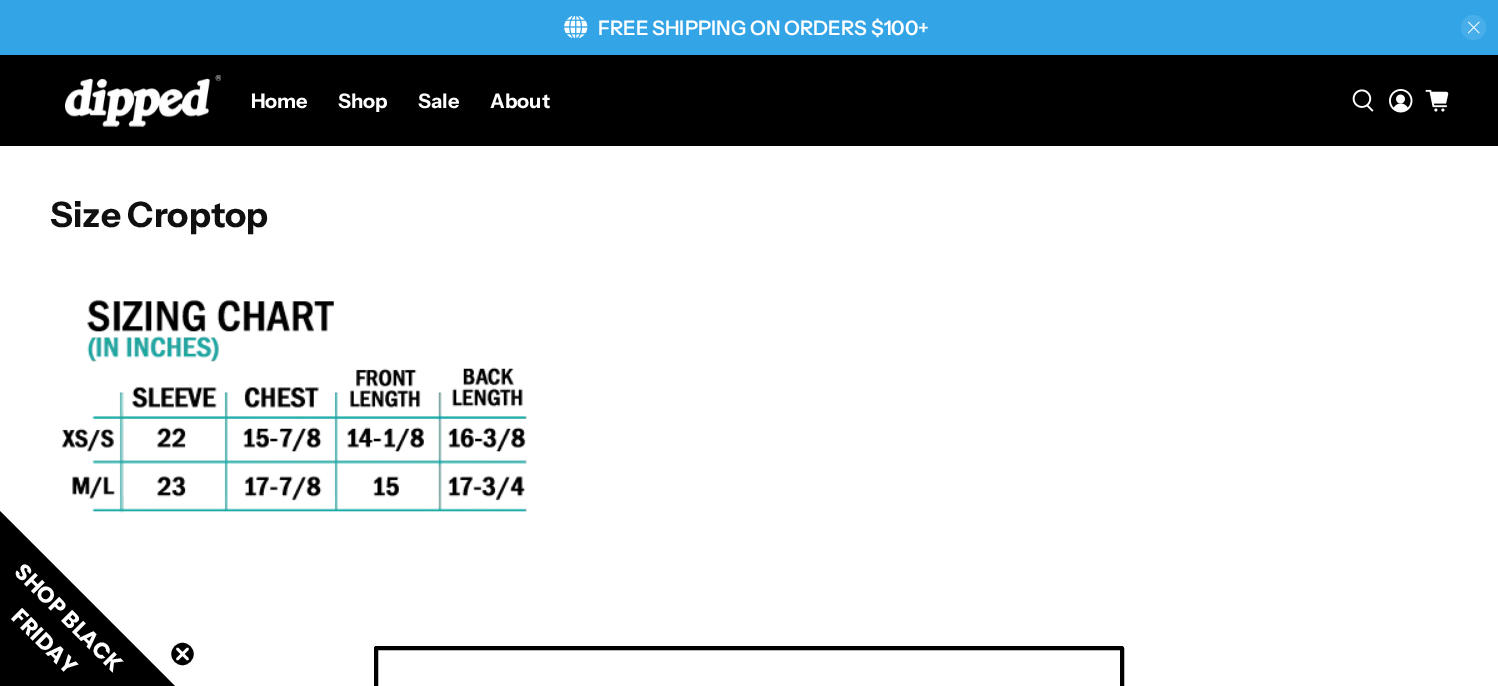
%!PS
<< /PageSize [1498 686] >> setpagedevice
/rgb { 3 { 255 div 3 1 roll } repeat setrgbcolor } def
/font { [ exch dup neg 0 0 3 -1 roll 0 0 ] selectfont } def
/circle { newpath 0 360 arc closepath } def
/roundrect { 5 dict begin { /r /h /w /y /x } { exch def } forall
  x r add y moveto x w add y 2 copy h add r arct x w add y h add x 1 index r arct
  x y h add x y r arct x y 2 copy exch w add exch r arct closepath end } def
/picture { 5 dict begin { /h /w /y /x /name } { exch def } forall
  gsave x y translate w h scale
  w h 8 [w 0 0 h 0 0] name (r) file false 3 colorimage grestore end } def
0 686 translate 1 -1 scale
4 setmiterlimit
255 255 255 rgb
0 0 1498 686 rectfill
51 165 231 rgb
0 0 1498 55 rectfill
(img/1.rgb) 564 15 24 24 picture
71 174 233 rgb
1473.5 27.5 12.5 circle fill
(img/2.rgb) 1468 21 12 13 picture
0 0 0 rgb
0 55 1498 91 rectfill
(img/3.rgb) 65 75 156 52 picture
(img/4.rgb) 1352 89 22 23 picture
(img/5.rgb) 1389 89 24 24 picture
(img/6.rgb) 1425 89 24 23 picture
(img/7.rgb) 61 299 466 214 picture
4 setlinewidth
376 648 746 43 0.5 roundrect stroke
0 511 moveto 175 686 lineto 0 686 lineto closepath fill
182.5 654 12 circle gsave fill grestore
255 255 255 rgb
1.2 setlinewidth
stroke
2.5 setlinewidth
1 setlinecap
1 setlinejoin
177.5 649 moveto 187.5 659 lineto 177.5 659 moveto 187.5 649 lineto closepath stroke
/InstrumentSans-SemiBold 20 font
598 35 moveto (FREE SHIPPING ON ORDERS $100+) show
/InstrumentSans-Bold 20 font
[
  [(Home) 251 108]
  [(Shop) 338 108]
  [(Sale) 418 108]
  [(About) 490 108]
] { aload pop moveto show } forall
/InstrumentSans-Bold 35 font
16 16 16 rgb
50 227 moveto (Size Croptop) show
/Poppins-Bold 22.5 font
255 255 255 rgb
gsave 13 573 translate 45 rotate 0 0 moveto (SHOP BLACK) show grestore
gsave 10 618 translate 45 rotate 0 0 moveto (FRIDAY) show grestore
showpage
